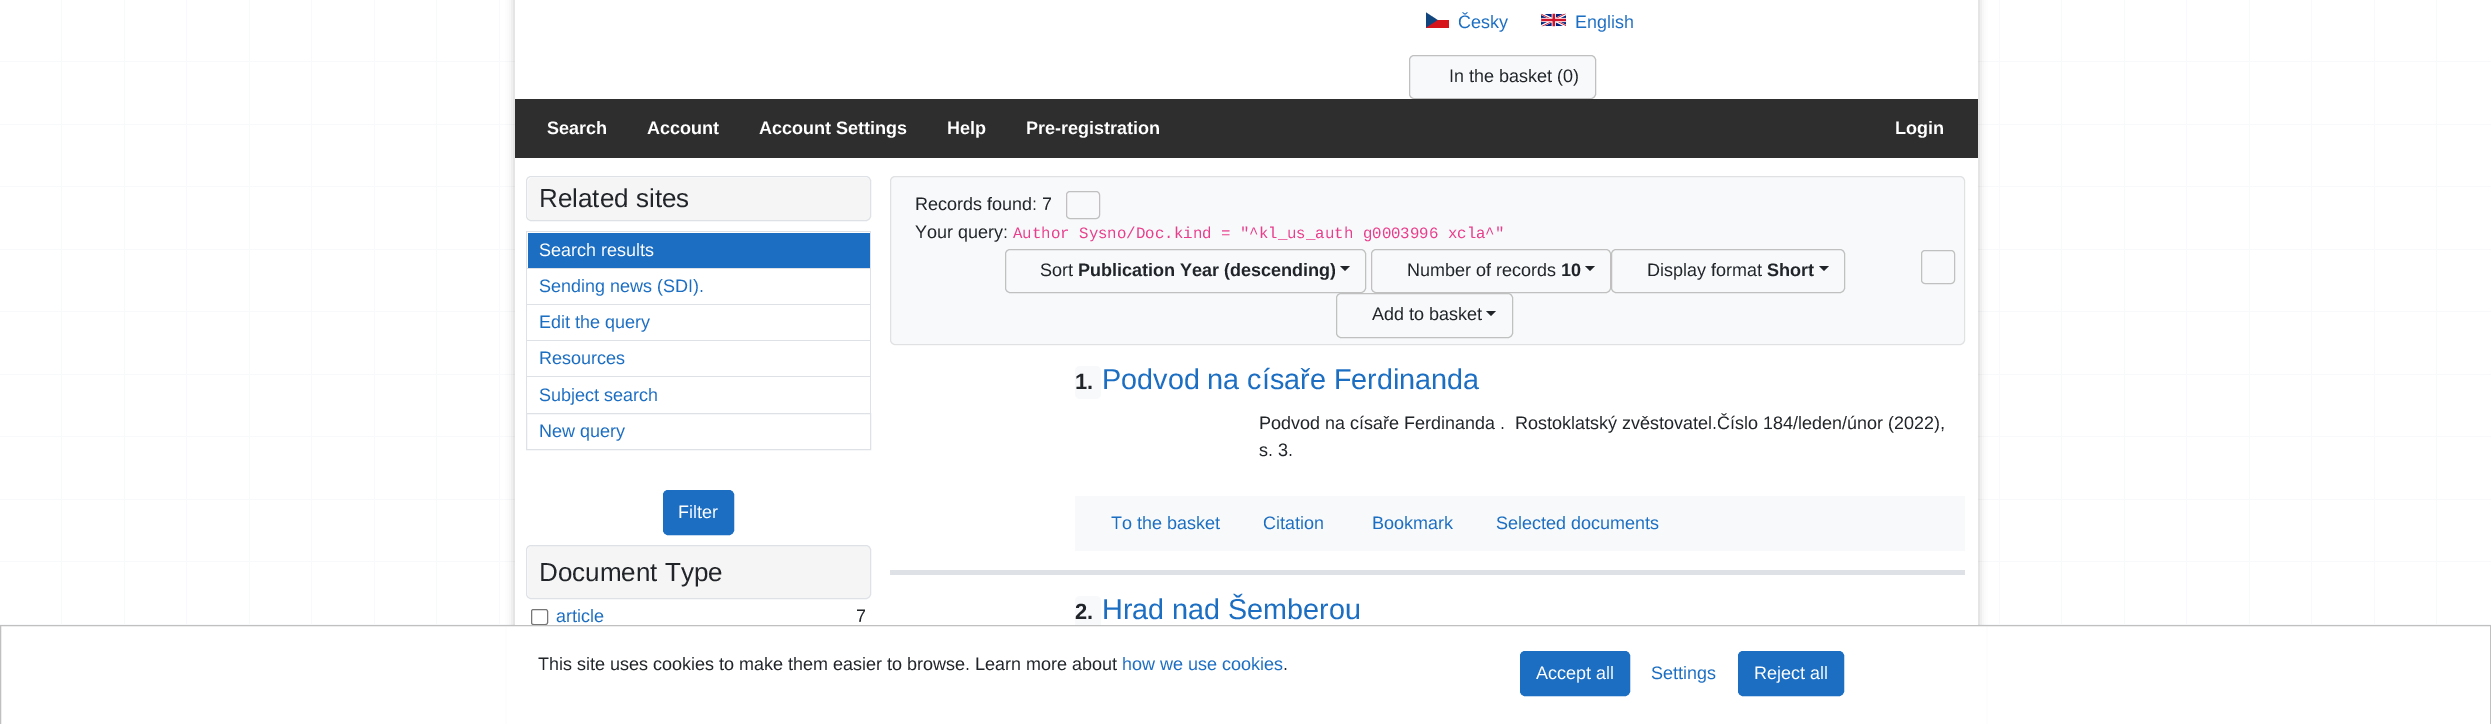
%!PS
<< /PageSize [2491 724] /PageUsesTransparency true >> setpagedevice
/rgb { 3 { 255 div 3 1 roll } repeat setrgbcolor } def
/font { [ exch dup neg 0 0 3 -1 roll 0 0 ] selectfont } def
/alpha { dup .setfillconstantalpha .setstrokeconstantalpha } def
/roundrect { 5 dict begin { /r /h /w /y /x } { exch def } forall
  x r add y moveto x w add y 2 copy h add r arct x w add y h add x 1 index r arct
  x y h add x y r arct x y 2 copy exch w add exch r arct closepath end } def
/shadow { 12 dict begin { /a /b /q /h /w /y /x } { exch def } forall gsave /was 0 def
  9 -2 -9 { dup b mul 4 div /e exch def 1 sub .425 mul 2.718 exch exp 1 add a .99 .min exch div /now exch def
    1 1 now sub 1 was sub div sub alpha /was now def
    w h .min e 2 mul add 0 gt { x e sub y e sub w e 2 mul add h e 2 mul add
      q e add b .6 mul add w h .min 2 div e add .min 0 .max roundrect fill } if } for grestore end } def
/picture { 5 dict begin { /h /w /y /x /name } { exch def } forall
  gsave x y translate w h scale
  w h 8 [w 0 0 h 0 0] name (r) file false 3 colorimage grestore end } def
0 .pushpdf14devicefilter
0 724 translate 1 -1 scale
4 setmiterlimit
255 255 255 rgb
0 0 2491 724 rectfill
(img/1.rgb) 61 0 2376 624 picture
[
  [0 61 2491 1 248 249 250]
  [0 124 2491 1 248 249 250]
  [0 186 2491 1 248 249 250]
  [0 249 2491 1 248 249 250]
  [0 311 2491 1 248 249 250]
  [0 374 2491 1 248 249 250]
  [0 436 2491 1 248 249 250]
  [0 499 2491 1 248 249 250]
  [0 561 2491 1 248 249 250]
  [0 624 2491 1 248 249 250]
] { aload pop rgb rectfill } forall
0 0 0 rgb
514 -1 1465 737 0 4 0.2 shadow
255 255 255 rgb
515 0 1463 625 rectfill
215 20 26 rgb
1426 20 23 8 rectfill
17 69 126 rgb
1437.5 20 moveto 1426 12.5 lineto 1426 27.5 lineto closepath fill
(img/2.rgb) 1541 13 25 14 picture
248 249 250 rgb
1409.5 55.5 186 43 4.5 roundrect gsave fill grestore
192 192 192 rgb
stroke
46 46 46 rgb
515 99 1463 59 rectfill
245 245 245 rgb
528 178 342 42 4 roundrect fill
222 226 230 rgb
526.5 176.5 344 44 4.5 roundrect stroke
[
  [526 231 345 1 222 226 230]
  [870 231 1 37 222 226 230]
  [526 231 1 37 222 226 230]
  [528 233 342 35 27 110 194]
  [526 268 345 1 222 226 230]
  [870 268 1 36 222 226 230]
  [526 268 1 36 222 226 230]
  [526 304 345 1 222 226 230]
  [870 304 1 36 222 226 230]
  [526 304 1 36 222 226 230]
  [526 340 345 1 222 226 230]
  [870 340 1 36 222 226 230]
  [526 340 1 36 222 226 230]
  [526 376 345 1 222 226 230]
  [870 376 1 37 222 226 230]
  [526 376 1 37 222 226 230]
] { aload pop rgb rectfill } forall
526.5 413.5 344 36 rectstroke
27 110 194 rgb
663.5 490.5 70 44 4.5 roundrect gsave fill grestore
stroke
245 245 245 rgb
528 546 342 52 4 roundrect fill
222 226 230 rgb
526.5 545.5 344 53 4.5 roundrect stroke
118 118 118 rgb
531.5 609.5 16 15 2 roundrect stroke
248 249 250 rgb
890 176 1075 169 5 roundrect fill
0.12 alpha
51 51 51 rgb
890.5 176.5 1074 168 4.5 roundrect stroke
1 alpha
192 192 192 rgb
1066.5 191.5 33 27 3.5 roundrect stroke
1005.5 249.5 360 43 4.5 roundrect stroke
33 37 41 rgb
1340 266 moveto 1350 266 lineto 1345 271 lineto closepath fill
192 192 192 rgb
1371.5 249.5 239 43 4.5 roundrect stroke
33 37 41 rgb
1585 266 moveto 1595 266 lineto 1590 271 lineto closepath fill
192 192 192 rgb
1611.5 249.5 233 43 4.5 roundrect stroke
33 37 41 rgb
1819 266 moveto 1829 266 lineto 1824 271 lineto closepath fill
192 192 192 rgb
1336.5 293.5 176 44 4.5 roundrect stroke
33 37 41 rgb
1486 311 moveto 1496 311 lineto 1491 316 lineto closepath fill
192 192 192 rgb
1921.5 250.5 33 33 3.5 roundrect stroke
222 226 230 rgb
890 570 1075 5 rectfill
248 249 250 rgb
1075 366 26 33 5 roundrect fill
1075 496 890 55 rectfill
1075 596 26 33 5 roundrect fill
255 255 255 rgb
507 626 1479 98 rectfill
192 192 192 rgb
0.5 625.5 2490 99 rectstroke
27 110 194 rgb
1520.5 651.5 109 44 4.5 roundrect gsave fill grestore
stroke
1738.5 651.5 105 44 4.5 roundrect gsave fill grestore
stroke
/LiberationSans-Regular 18 font
1458 28 moveto (Česky) show
1575 28 moveto (English) show
33 37 41 rgb
1449 82 moveto (In the basket \(0\)) show
/LiberationSans-Bold 18 font
255 255 255 rgb
[
  [(Search) 547 134]
  [(Account) 647 134]
  [(Account Settings) 759 134]
  [(Help) 947 134]
  [(Pre-registration) 1026 134]
  [(Login) 1895 134]
] { aload pop moveto show } forall
/LiberationSans-Regular 26 font
33 37 41 rgb
539 207 moveto (Related sites) show
/LiberationSans-Regular 18 font
255 255 255 rgb
539 256 moveto (Search results) show
27 110 194 rgb
[
  [(Sending news \(SDI\).) 539 292]
  [(Edit the query) 539 328]
  [(Resources) 539 364]
  [(Subject search) 539 401]
  [(New query) 539 437]
] { aload pop moveto show } forall
255 255 255 rgb
678 518 moveto (Filter) show
/LiberationSans-Regular 26 font
33 37 41 rgb
539 581 moveto (Document Type) show
/LiberationSans-Regular 18 font
27 110 194 rgb
556 622 moveto (article) show
33 37 41 rgb
[
  [(7) 856 622]
  [(Records found: 7) 915 210]
  [(Your query:) 915 238]
] { aload pop moveto show } forall
/LiberationMono-Regular 15.75 font
232 62 140 rgb
1013 238 moveto (Author Sysno/Doc.kind = "^kl_us_auth g0003996 xcla^") show
/LiberationSans-Regular 18 font
33 37 41 rgb
1040 276 moveto (Sort) show
/LiberationSans-Bold 18 font
1078 276 moveto (Publication Year \(descending\)) show
/LiberationSans-Regular 18 font
1407 276 moveto (Number of records) show
/LiberationSans-Bold 18 font
1561 276 moveto (10) show
/LiberationSans-Regular 18 font
1647 276 moveto (Display format) show
/LiberationSans-Bold 18 font
1767 276 moveto (Short) show
/LiberationSans-Regular 18 font
1372 320 moveto (Add to basket) show
/LiberationSans-Bold 22 font
1075 389 moveto (1.) show
/LiberationSans-Regular 28.75 font
27 110 194 rgb
1102 389 moveto (Podvod na císaře Ferdinanda) show
/LiberationSans-Regular 18 font
33 37 41 rgb
1259 429 moveto (Podvod na císaře Ferdinanda .  Rostoklatský zvěstovatel.Číslo 184/leden/únor \(2022\),) show
1259 456 moveto (s. 3.) show
27 110 194 rgb
[
  [(To the basket) 1111 529]
  [(Citation) 1263 529]
  [(Bookmark) 1372 529]
  [(Selected documents) 1496 529]
] { aload pop moveto show } forall
/LiberationSans-Bold 22 font
33 37 41 rgb
1075 619 moveto (2.) show
/LiberationSans-Regular 28.75 font
27 110 194 rgb
1102 619 moveto (Hrad nad Šemberou) show
/LiberationSans-Regular 18 font
33 37 41 rgb
538 670 moveto (This site uses cookies to make them easier to browse. Learn more about) show
27 110 194 rgb
1122 670 moveto (how we use cookies) show
33 37 41 rgb
1283 670 moveto (.) show
255 255 255 rgb
1536 679 moveto (Accept all) show
27 110 194 rgb
1651 679 moveto (Settings) show
255 255 255 rgb
1754 679 moveto (Reject all) show
.poppdf14devicefilter showpage
